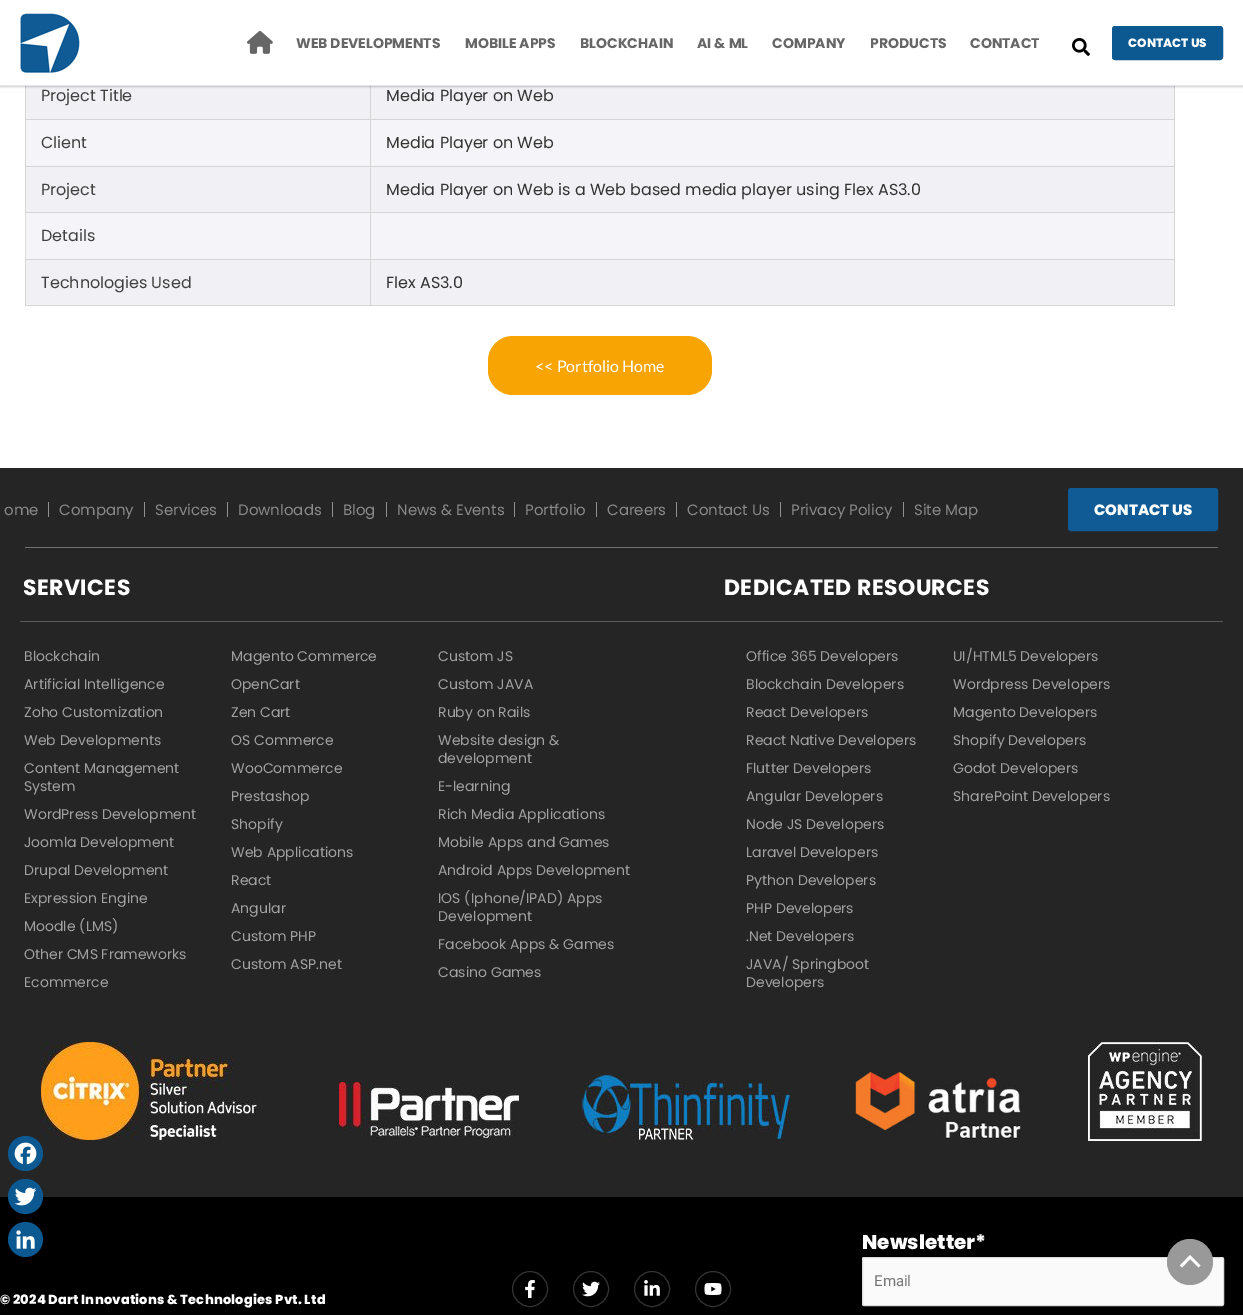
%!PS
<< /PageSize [1243 1315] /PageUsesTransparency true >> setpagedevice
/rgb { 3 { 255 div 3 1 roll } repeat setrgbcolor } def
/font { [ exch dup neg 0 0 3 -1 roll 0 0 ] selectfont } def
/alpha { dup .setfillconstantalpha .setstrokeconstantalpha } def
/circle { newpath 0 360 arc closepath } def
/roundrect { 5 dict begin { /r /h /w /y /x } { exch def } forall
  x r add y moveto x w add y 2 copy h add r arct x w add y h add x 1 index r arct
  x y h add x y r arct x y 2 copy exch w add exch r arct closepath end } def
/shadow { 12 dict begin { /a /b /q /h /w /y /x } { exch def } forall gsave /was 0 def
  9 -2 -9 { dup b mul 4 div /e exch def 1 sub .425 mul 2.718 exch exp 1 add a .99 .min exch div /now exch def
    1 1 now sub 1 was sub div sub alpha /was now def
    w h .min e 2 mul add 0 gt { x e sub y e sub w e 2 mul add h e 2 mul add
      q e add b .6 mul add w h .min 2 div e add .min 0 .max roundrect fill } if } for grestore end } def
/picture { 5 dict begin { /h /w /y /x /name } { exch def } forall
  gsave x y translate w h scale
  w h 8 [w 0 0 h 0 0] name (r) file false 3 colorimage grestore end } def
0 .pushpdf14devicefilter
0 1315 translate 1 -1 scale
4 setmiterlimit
255 255 255 rgb
0 0 1243 1315 rectfill
[
  [26 86 1148 33 240 240 245]
  [370 119 805 1 213 213 213]
  [26 120 1148 46 245 245 249]
  [370 166 805 1 213 213 213]
  [26 167 1148 45 240 240 245]
  [370 212 805 1 213 213 213]
  [26 213 1148 46 245 245 249]
  [370 259 805 1 213 213 213]
  [26 260 1148 45 240 240 245]
  [1174 259 1 47 213 213 213]
  [370 305 805 1 213 213 213]
  [370 259 1 47 213 213 213]
  [25 259 346 1 213 213 213]
  [370 212 1 48 213 213 213]
  [370 166 1 47 213 213 213]
  [25 166 346 1 213 213 213]
  [370 119 1 48 213 213 213]
  [25 119 346 1 213 213 213]
  [370 86 1 34 213 213 213]
  [25 212 346 1 213 213 213]
  [25 166 1 47 213 213 213]
  [25 86 1 81 213 213 213]
  [1174 212 1 48 213 213 213]
  [1174 166 1 47 213 213 213]
  [1174 86 1 81 213 213 213]
] { aload pop rgb rectfill } forall
0 0 0 rgb
0 1 1243 86 0 1 0.2 shadow
255 255 255 rgb
0 0 1243 85 rectfill
229 229 229 rgb
0 85 1243 1 rectfill
(img/1.rgb) 20 13 60 60 picture
(img/2.rgb) 247 30 26 24 picture
(img/3.rgb) 1072 38 18 18 picture
12 88 145 rgb
1112.5 26.5 110 33 2.5 roundrect gsave fill grestore
stroke
[
  [25 213 1 46 221 221 221]
  [25 305 346 1 213 213 213]
  [25 259 1 47 213 213 213]
] { aload pop rgb rectfill } forall
248 165 4 rgb
488 336 224 59 25 roundrect fill
[
  [0 468 1243 100 37 37 37]
  [25 547 1193 1 112 112 112]
  [48 502 1 15 144 144 144]
  [144 502 1 15 144 144 144]
  [227 502 1 15 144 144 144]
  [332 502 1 15 144 144 144]
  [386 502 1 15 144 144 144]
  [514 502 1 15 144 144 144]
  [596 502 1 15 144 144 144]
  [676 502 1 15 144 144 144]
  [780 502 1 15 144 144 144]
  [903 502 1 15 144 144 144]
] { aload pop rgb rectfill } forall
16 91 149 rgb
1068.5 488.5 149 42 2.5 roundrect gsave fill grestore
stroke
37 37 37 rgb
0 568 1243 629 rectfill
91 91 91 rgb
20 621 1203 1 rectfill
(img/4.rgb) 41 1042 216 98 picture
(img/5.rgb) 339 1082 180 56 picture
(img/6.rgb) 582 1075 209 65 picture
(img/7.rgb) 855 1072 167 68 picture
(img/8.rgb) 1088 1042 114 99 picture
0 0 0 rgb
0 1197 1243 118 rectfill
51 51 51 rgb
530 1289 17.5 circle stroke
(img/9.rgb) 525 1280 10 18 picture
591 1289 17.5 circle stroke
(img/10.rgb) 582 1281 18 16 picture
652 1289 17.5 circle stroke
(img/11.rgb) 644 1280 16 16 picture
713 1289 17.5 circle stroke
(img/12.rgb) 704 1283 18 12 picture
250 250 250 rgb
862.5 1257.5 361 48 1.5 roundrect gsave fill grestore
221 221 221 rgb
stroke
12 88 145 rgb
25.5 1153.5 17.5 circle fill
(img/13.rgb) 14 1142 23 23 picture
25.5 1196.5 17.5 circle fill
(img/14.rgb) 14 1187 23 19 picture
25.5 1239.5 17.5 circle fill
(img/15.rgb) 16 1230 19 19 picture
153 153 153 rgb
1190 1262 23 circle fill
255 255 255 rgb
1200.5 1265.5 moveto 1190 1255 lineto 1180 1265.5 lineto 1182 1267.5 lineto 1190 1259 lineto 1198.5 1267.5 lineto closepath fill
/Poppins-Bold 14 font
102 102 102 rgb
[
  [(WEB DEVELOPMENTS) 296 48]
  [(MOBILE APPS) 465 48]
  [(BLOCKCHAIN) 580 48]
  [(AI & ML) 697 48]
  [(COMPANY) 772 48]
  [(PRODUCTS) 870 48]
  [(CONTACT) 970 48]
] { aload pop moveto show } forall
/Poppins-ExtraBold 12 font
255 255 255 rgb
1128 47 moveto (CONTACT US) show
/Poppins-Regular 16 font
64 64 64 rgb
41 101 moveto (Project Title) show
51 51 51 rgb
386 101 moveto (Media Player on Web) show
64 64 64 rgb
41 148 moveto (Client) show
51 51 51 rgb
386 148 moveto (Media Player on Web) show
64 64 64 rgb
41 195 moveto (Project) show
51 51 51 rgb
386 195 moveto (Media Player on Web is a Web based media player using Flex AS3.0) show
64 64 64 rgb
41 241 moveto (Details) show
41 288 moveto (Technologies Used) show
51 51 51 rgb
386 288 moveto (Flex AS3.0) show
/Lato-Regular 16 font
255 255 255 rgb
535 372 moveto (<< Portfolio Home) show
/Poppins-Regular 15 font
137 137 137 rgb
[
  [(ome) 4 515]
  [(Company) 59 515]
  [(Services) 155 515]
  [(Downloads) 238 515]
  [(Blog) 343 515]
  [(News & Events) 397 515]
  [(Portfolio) 525 515]
  [(Careers) 607 515]
  [(Contact Us) 687 515]
  [(Privacy Policy) 791 515]
  [(Site Map) 914 515]
] { aload pop moveto show } forall
/Poppins-ExtraBold 15 font
255 255 255 rgb
1094 515 moveto (CONTACT US) show
/Poppins-Bold 22 font
23 595 moveto 0.4 0 (SERVICES) ashow
724 595 moveto 0.4 0 (DEDICATED RESOURCES) ashow
/Poppins-Regular 14 font
161 161 161 rgb
[
  [(Blockchain) 24 661]
  [(Artificial Intelligence) 24 689]
  [(Zoho Customization) 24 717]
  [(Web Developments) 24 745]
  [(Content Management) 24 773]
  [(System) 24 791]
  [(WordPress Development) 24 819]
  [(Joomla Development) 24 847]
  [(Drupal Development) 24 875]
  [(Expression Engine) 24 903]
  [(Moodle \(LMS\)) 24 931]
  [(Other CMS Frameworks) 24 959]
  [(Ecommerce) 24 987]
  [(Magento Commerce) 231 661]
  [(OpenCart) 231 689]
  [(Zen Cart) 231 717]
  [(OS Commerce) 231 745]
  [(WooCommerce) 231 773]
  [(Prestashop) 231 801]
  [(Shopify) 231 829]
  [(Web Applications) 231 857]
  [(React) 231 885]
  [(Angular) 231 913]
  [(Custom PHP) 231 941]
  [(Custom ASP.net) 231 969]
  [(Custom JS) 438 661]
  [(Custom JAVA) 438 689]
  [(Ruby on Rails) 438 717]
  [(Website design &) 438 745]
  [(development) 438 763]
  [(E-learning) 438 791]
  [(Rich Media Applications) 438 819]
  [(Mobile Apps and Games) 438 847]
  [(Android Apps Development) 438 875]
  [(IOS \(Iphone/IPAD\) Apps) 438 903]
  [(Development) 438 921]
  [(Facebook Apps & Games) 438 949]
  [(Casino Games) 438 977]
  [(Office 365 Developers) 746 661]
  [(Blockchain Developers) 746 689]
  [(React Developers) 746 717]
  [(React Native Developers) 746 745]
  [(Flutter Developers) 746 773]
  [(Angular Developers) 746 801]
  [(Node JS Developers) 746 829]
  [(Laravel Developers) 746 857]
  [(Python Developers) 746 885]
  [(PHP Developers) 746 913]
  [(.Net Developers) 746 941]
  [(JAVA/ Springboot) 746 969]
  [(Developers) 746 987]
  [(UI/HTML5 Developers) 953 661]
  [(Wordpress Developers) 953 689]
  [(Magento Developers) 953 717]
  [(Shopify Developers) 953 745]
  [(Godot Developers) 953 773]
  [(SharePoint Developers) 953 801]
] { aload pop moveto show } forall
/Poppins-ExtraBold 13 font
255 255 255 rgb
0 1304 moveto 0.15 0 (© 2024 Dart Innovations & Technologies Pvt. Ltd) ashow
/Poppins-ExtraBold 20 font
862 1249 moveto (Newsletter*) show
/Roboto-Regular 15 font
117 117 117 rgb
874 1286 moveto (Email) show
.poppdf14devicefilter showpage
